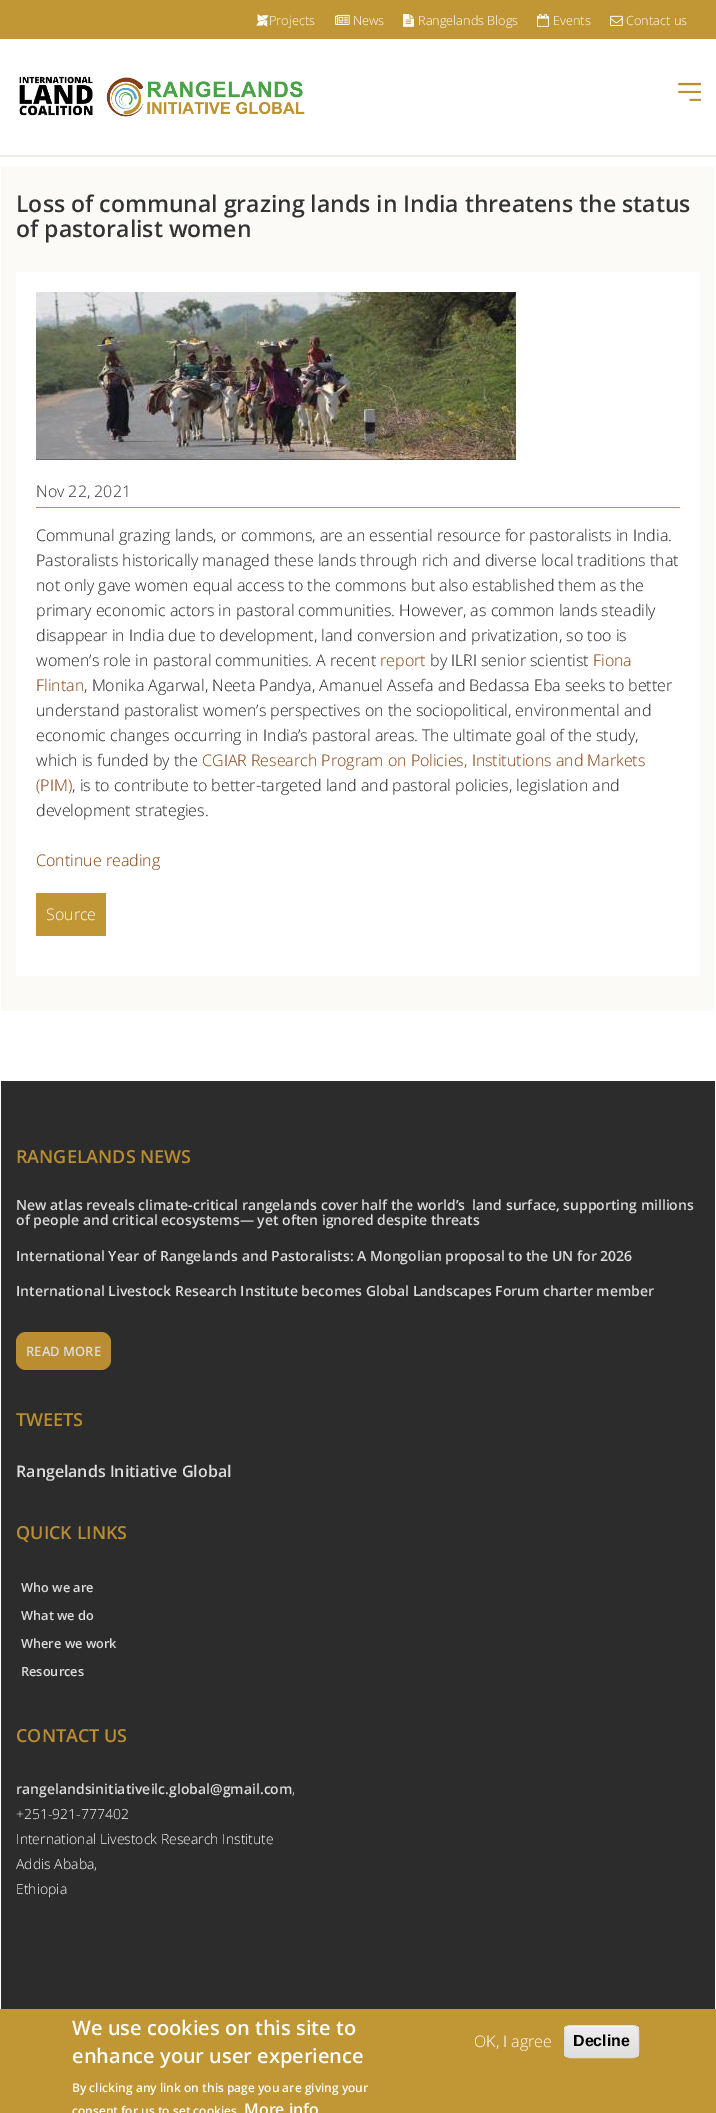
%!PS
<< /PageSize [716 2113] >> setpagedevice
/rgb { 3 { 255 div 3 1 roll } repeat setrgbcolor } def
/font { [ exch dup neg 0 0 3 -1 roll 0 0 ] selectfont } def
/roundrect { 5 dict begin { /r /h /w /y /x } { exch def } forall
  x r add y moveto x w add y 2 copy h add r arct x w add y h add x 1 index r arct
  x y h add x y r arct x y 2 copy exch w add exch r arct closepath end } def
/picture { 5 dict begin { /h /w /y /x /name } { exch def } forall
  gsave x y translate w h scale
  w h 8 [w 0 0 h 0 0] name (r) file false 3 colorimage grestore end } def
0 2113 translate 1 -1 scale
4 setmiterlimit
255 255 255 rgb
0 0 716 2113 rectfill
243 236 223 rgb
0 155 716 2 rectfill
193 151 54 rgb
0 0 716 39 rectfill
(img/1.rgb) 256 14 13 13 picture
(img/2.rgb) 335 14 15 11 picture
(img/3.rgb) 403 14 11 13 picture
(img/4.rgb) 537 14 12 13 picture
(img/5.rgb) 610 15 13 11 picture
(img/6.rgb) 19 76 286 41 picture
(img/7.rgb) 677 82 24 19 picture
251 250 247 rgb
1 166 714 845 rectfill
255 255 255 rgb
16 272 684 704 rectfill
(img/8.rgb) 36 292 480 168 picture
[
  [36 507 644 1 193 151 54]
  [36 893 70 43 193 151 54]
  [1 1081 714 928 44 44 44]
] { aload pop rgb rectfill } forall
186 141 49 rgb
16 1332 95 38 10 roundrect fill
193 151 54 rgb
0 2009 716 104 rectfill
gsave
564 2025 75 33 6 roundrect clip newpath
gsave 564 2026 moveto 639 2026 lineto 639 2057 lineto 564 2057 lineto closepath clip newpath
<< /ShadingType 2 /ColorSpace /DeviceRGB /Coords [602 2026 602 2057] /Extend [true true] /Function << /FunctionType 3 /Domain [0 1] /Functions [<< /FunctionType 2 /Domain [0 1] /C0 [0.929 0.929 0.929] /C1 [0.929 0.929 0.929] /N 1 >> << /FunctionType 2 /Domain [0 1] /C0 [0.929 0.929 0.929] /C1 [0.875 0.875 0.875] /N 1 >>] /Bounds [0.05] /Encode [0 1 0 1] >> >> shfill grestore
grestore
255 255 255 rgb
570 2027 moveto 633 2027 lineto 636 2027 638 2029 638 2032 curveto 638 2024 628 2026 622 2026 curveto 580 2026 lineto 575 2026 565 2024 565 2032 curveto 565 2029 567 2027 570 2027 curveto closepath fill
220 220 220 rgb
564.5 2025.5 74 32 5.5 roundrect stroke
/OpenSans-Light 12.75 font
255 255 255 rgb
[
  [(Projects) 269 25]
  [(News) 353 25]
  [(Rangelands Blogs) 418 25]
  [(Events) 553 25]
  [(Contact us) 626 25]
] { aload pop moveto show } forall
/OpenSans-SemiBold 23 font
51 51 51 rgb
16 212 moveto (Loss of communal grazing lands in India threatens the status) show
16 237 moveto (of pastoralist women) show
/OpenSans-Light 16 font
36 497 moveto (Nov 22, 2021) show
34 34 34 rgb
[
  [(Communal grazing lands, or commons, are an essential resource for pastoralists in India.) 36 541]
  [(Pastoralists historically managed these lands through rich and diverse local traditions that) 36 566]
  [(not only gave women equal access to the commons but also established them as the) 36 591]
  [(primary economic actors in pastoral communities. However, as common lands steadily) 36 616]
  [(disappear in India due to development, land conversion and privatization, so too is) 36 641]
  [(women’s role in pastoral communities. A recent) 36 666]
] { aload pop moveto show } forall
132 62 13 rgb
380 666 moveto (report) show
34 34 34 rgb
430 666 moveto (by ILRI senior scientist) show
132 62 13 rgb
593 666 moveto (Fiona) show
36 691 moveto (Flintan) show
34 34 34 rgb
[
  [(, Monika Agarwal, Neeta Pandya, Amanuel Assefa and Bedassa Eba seeks to better) 84 691]
  [(understand pastoralist women’s perspectives on the sociopolitical, environmental and) 36 716]
  [(economic changes occurring in India’s pastoral areas. The ultimate goal of the study,) 36 741]
  [(which is funded by the) 36 766]
] { aload pop moveto show } forall
132 62 13 rgb
202 766 moveto (CGIAR Research Program on Policies, Institutions and Markets) show
36 791 moveto (\(PIM\)) show
34 34 34 rgb
72 791 moveto (, is to contribute to better-targeted land and pastoral policies, legislation and) show
36 816 moveto (development strategies.) show
132 62 13 rgb
36 866 moveto (Continue reading) show
255 255 255 rgb
46 920 moveto (Source) show
/OpenSans-SemiBold 18 font
186 141 49 rgb
16 1163 moveto (RANGELANDS NEWS) show
/OpenSans-SemiBold 14 font
222 221 221 rgb
[
  [(New atlas reveals climate-critical rangelands cover half the world’s  land surface, supporting millions) 16 1210]
  [(of people and critical ecosystems— yet often ignored despite threats) 16 1225]
  [(International Year of Rangelands and Pastoralists: A Mongolian proposal to the UN for 2026) 16 1261]
  [(International Livestock Research Institute becomes Global Landscapes Forum charter member) 16 1296]
] { aload pop moveto show } forall
/OpenSans-SemiBold 13 font
26 1356 moveto (READ MORE) show
/OpenSans-SemiBold 18 font
186 141 49 rgb
16 1426 moveto (TWEETS) show
/OpenSans-SemiBold 16 font
222 221 221 rgb
16 1477 moveto (Rangelands Initiative Global) show
/OpenSans-SemiBold 18 font
186 141 49 rgb
16 1539 moveto (QUICK LINKS) show
/OpenSans-SemiBold 12.75 font
222 221 221 rgb
[
  [(Who we are) 21 1592]
  [(What we do) 21 1620]
  [(Where we work) 21 1648]
  [(Resources) 21 1676]
] { aload pop moveto show } forall
/OpenSans-SemiBold 18 font
186 141 49 rgb
16 1742 moveto (CONTACT US) show
/OpenSans-SemiBold 14 font
222 221 221 rgb
16 1794 moveto (rangelandsinitiativeilc.global@gmail.com) show
/OpenSans-Light 14 font
255 255 255 rgb
[
  [(,) 292 1794]
  [(+251-921-777402) 16 1819]
  [(International Livestock Research Institute) 16 1844]
  [(Addis Ababa,) 16 1869]
  [(Ethiopia) 16 1894]
] { aload pop moveto show } forall
/OpenSans-SemiBold 20 font
72 2035 moveto (We use cookies on this site to) show
72 2063 moveto (enhance your user experience) show
/OpenSans-SemiBold 12 font
72 2092 moveto (By clicking any link on this page you are giving your) show
72 2115 moveto (consent for us to set cookies) show
/OpenSans-SemiBold 16 font
244 2115 moveto (More info) show
/OpenSans-Light 16 font
474 2047 moveto (OK, I agree) show
/LiberationSans-Bold 16 font
0 0 0 rgb
573 2046 moveto (Decline) show
showpage
